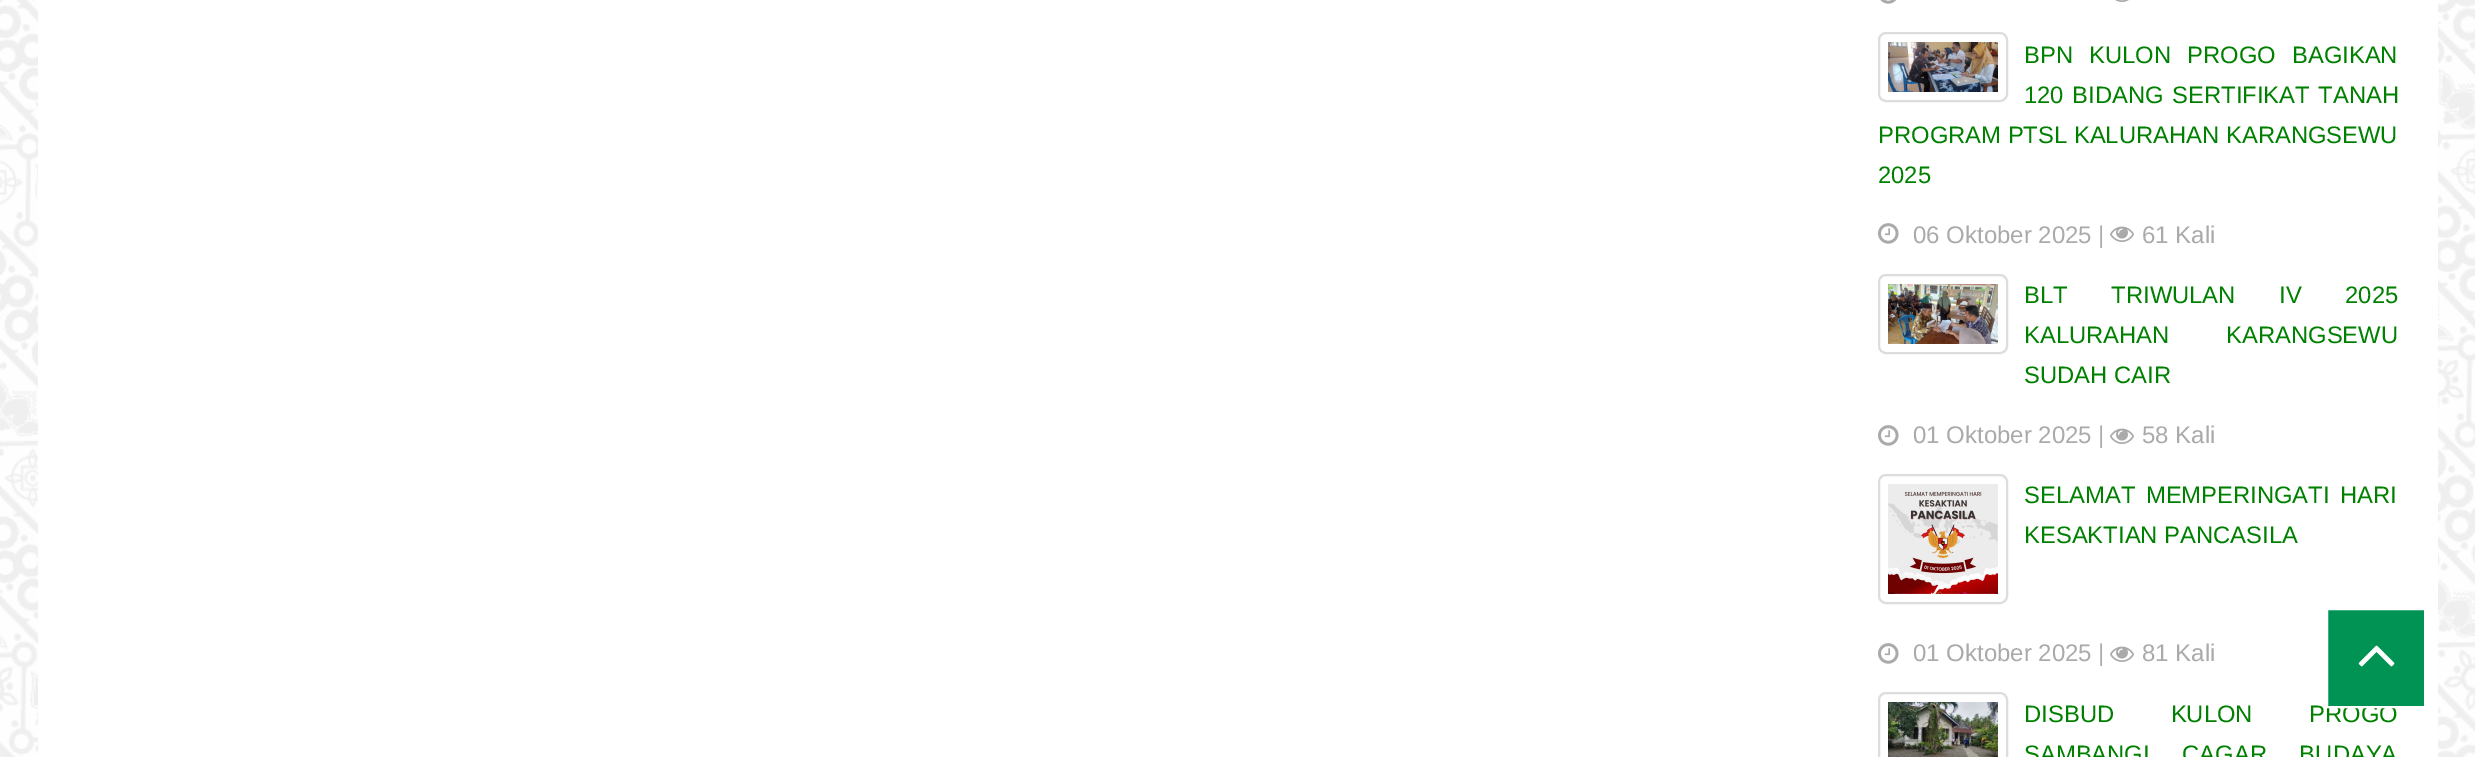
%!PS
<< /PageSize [2475 757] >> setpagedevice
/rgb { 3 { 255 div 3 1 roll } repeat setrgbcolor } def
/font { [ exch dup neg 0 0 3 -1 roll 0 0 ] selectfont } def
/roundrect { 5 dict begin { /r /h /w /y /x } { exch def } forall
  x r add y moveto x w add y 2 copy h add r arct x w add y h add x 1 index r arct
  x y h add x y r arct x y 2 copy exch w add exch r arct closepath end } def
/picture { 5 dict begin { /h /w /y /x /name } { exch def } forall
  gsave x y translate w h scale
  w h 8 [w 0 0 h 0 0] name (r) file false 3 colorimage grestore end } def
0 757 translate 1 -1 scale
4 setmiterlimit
255 255 255 rgb
0 0 2475 757 rectfill
(img/1.rgb) 0 0 2475 757 picture
38 0 2400 757 rectfill
(img/2.rgb) 1880 0 16 4 picture
(img/3.rgb) 2115 0 14 2 picture
221 221 221 rgb
2 setlinewidth
1879 33 128 68 7 roundrect stroke
(img/4.rgb) 1888 42 110 50 picture
(img/5.rgb) 1878 223 21 21 picture
(img/6.rgb) 2110 226 24 16 picture
1879 275 128 78 7 roundrect stroke
(img/7.rgb) 1888 284 110 60 picture
(img/5.rgb) 1878 425 21 21 picture
(img/6.rgb) 2110 428 24 16 picture
1879 475 128 128 7 roundrect stroke
(img/8.rgb) 1888 484 110 110 picture
(img/5.rgb) 1878 643 21 21 picture
(img/6.rgb) 2110 646 24 16 picture
1879 693 128 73 7 roundrect stroke
(img/9.rgb) 1888 702 110 55 picture
/LiberationSans-Regular 23.8 font
0 128 0 rgb
2024 63 moveto 9.5 0 32 (BPN KULON PROGO BAGIKAN) widthshow
2024 103 moveto 2 0 32 (120 BIDANG SERTIFIKAT TANAH) widthshow
1878 143 moveto (PROGRAM PTSL KALURAHAN KARANGSEWU) show
1878 183 moveto (2025) show
/LiberationSans-Regular 24 font
170 170 170 rgb
1913 243 moveto (06 Oktober 2025 |) show
2142 243 moveto (61 Kali) show
/LiberationSans-Regular 23.8 font
0 128 0 rgb
2024 303 moveto 37 0 32 (BLT TRIWULAN IV 2025) widthshow
2024 343 moveto 50 0 32 (KALURAHAN KARANGSEWU) widthshow
2024 383 moveto (SUDAH CAIR) show
/LiberationSans-Regular 24 font
170 170 170 rgb
1913 443 moveto (01 Oktober 2025 |) show
2142 443 moveto (58 Kali) show
/LiberationSans-Regular 23.8 font
0 128 0 rgb
2024 503 moveto 4 0 32 (SELAMAT MEMPERINGATI HARI) widthshow
2024 543 moveto (KESAKTIAN PANCASILA) show
/LiberationSans-Regular 24 font
170 170 170 rgb
1913 661 moveto (01 Oktober 2025 |) show
2142 661 moveto (81 Kali) show
/LiberationSans-Regular 23.8 font
0 128 0 rgb
2024 722 moveto 50 0 32 (DISBUD KULON PROGO) widthshow
2024 762 moveto 26 0 32 (SAMBANGI CAGAR BUDAYA) widthshow
0 147 83 rgb
2327 609 moveto 2425 609 lineto 2425 707 lineto 2327 707 lineto closepath gsave fill grestore
255 255 255 rgb
stroke
(img/10.rgb) 2358 645 37 22 picture
showpage
